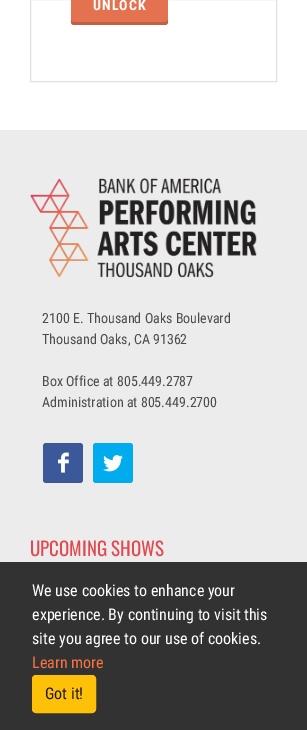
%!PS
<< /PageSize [307 730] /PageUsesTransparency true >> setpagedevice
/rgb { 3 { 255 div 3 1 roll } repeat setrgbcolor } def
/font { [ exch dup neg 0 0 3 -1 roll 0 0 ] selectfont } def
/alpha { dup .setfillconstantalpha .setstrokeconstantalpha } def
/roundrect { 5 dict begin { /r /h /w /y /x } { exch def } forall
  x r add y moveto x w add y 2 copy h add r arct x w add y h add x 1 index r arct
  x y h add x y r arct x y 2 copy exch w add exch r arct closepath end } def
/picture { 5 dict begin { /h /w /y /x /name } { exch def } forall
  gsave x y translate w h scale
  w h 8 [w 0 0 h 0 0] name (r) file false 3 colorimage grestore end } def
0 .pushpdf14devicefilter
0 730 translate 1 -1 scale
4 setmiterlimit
255 255 255 rgb
0 0 307 730 rectfill
222 226 230 rgb
30.5 -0.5 246 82 rectstroke
228 113 79 rgb
71 -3 97 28 3 roundrect fill
0.15 alpha
0 0 0 rgb
71 19 moveto 71 22 lineto 71 24 72 25 74 25 curveto 165 25 lineto 167 25 168 24 168 22 curveto 168 19 lineto 168 21 167 22 165 22 curveto 74 22 lineto 72 22 71 21 71 19 curveto closepath fill
1 alpha
236 236 236 rgb
0 130 307 432 rectfill
(img/1.rgb) 30 178 227 100 picture
59 89 152 rgb
43 443 40 40 3 roundrect fill
(img/2.rgb) 58 452 11 21 picture
0 172 238 rgb
93 443 40 40 3 roundrect fill
(img/3.rgb) 103 455 20 17 picture
50 50 50 rgb
0 562 307 168 rectfill
255 193 7 rgb
32.5 675.5 63 37 3.5 roundrect gsave fill grestore
stroke
/RobotoCondensed-Bold 14 font
255 255 255 rgb
93 10 moveto 1 0 (UNLOCK) ashow
/RobotoCondensed-Regular 14 font
75 75 75 rgb
[
  [(2100 E. Thousand Oaks Boulevard) 42 323]
  [(Thousand Oaks, CA 91362) 42 344]
  [(Box Office at 805.449.2787) 42 386]
  [(Administration at 805.449.2700) 42 407]
] { aload pop moveto show } forall
/Oswald-Regular 19 font
225 73 81 rgb
30 556 moveto (UPCOMING SHOWS) show
/RobotoCondensed-Regular 16 font
255 255 255 rgb
[
  [(We use cookies to enhance your) 32 596]
  [(experience. By continuing to visit this) 32 620]
  [(site you agree to our use of cookies.) 32 644]
] { aload pop moveto show } forall
247 115 63 rgb
32 668 moveto (Learn more) show
25 25 25 rgb
45 699 moveto (Got it!) show
.poppdf14devicefilter showpage
